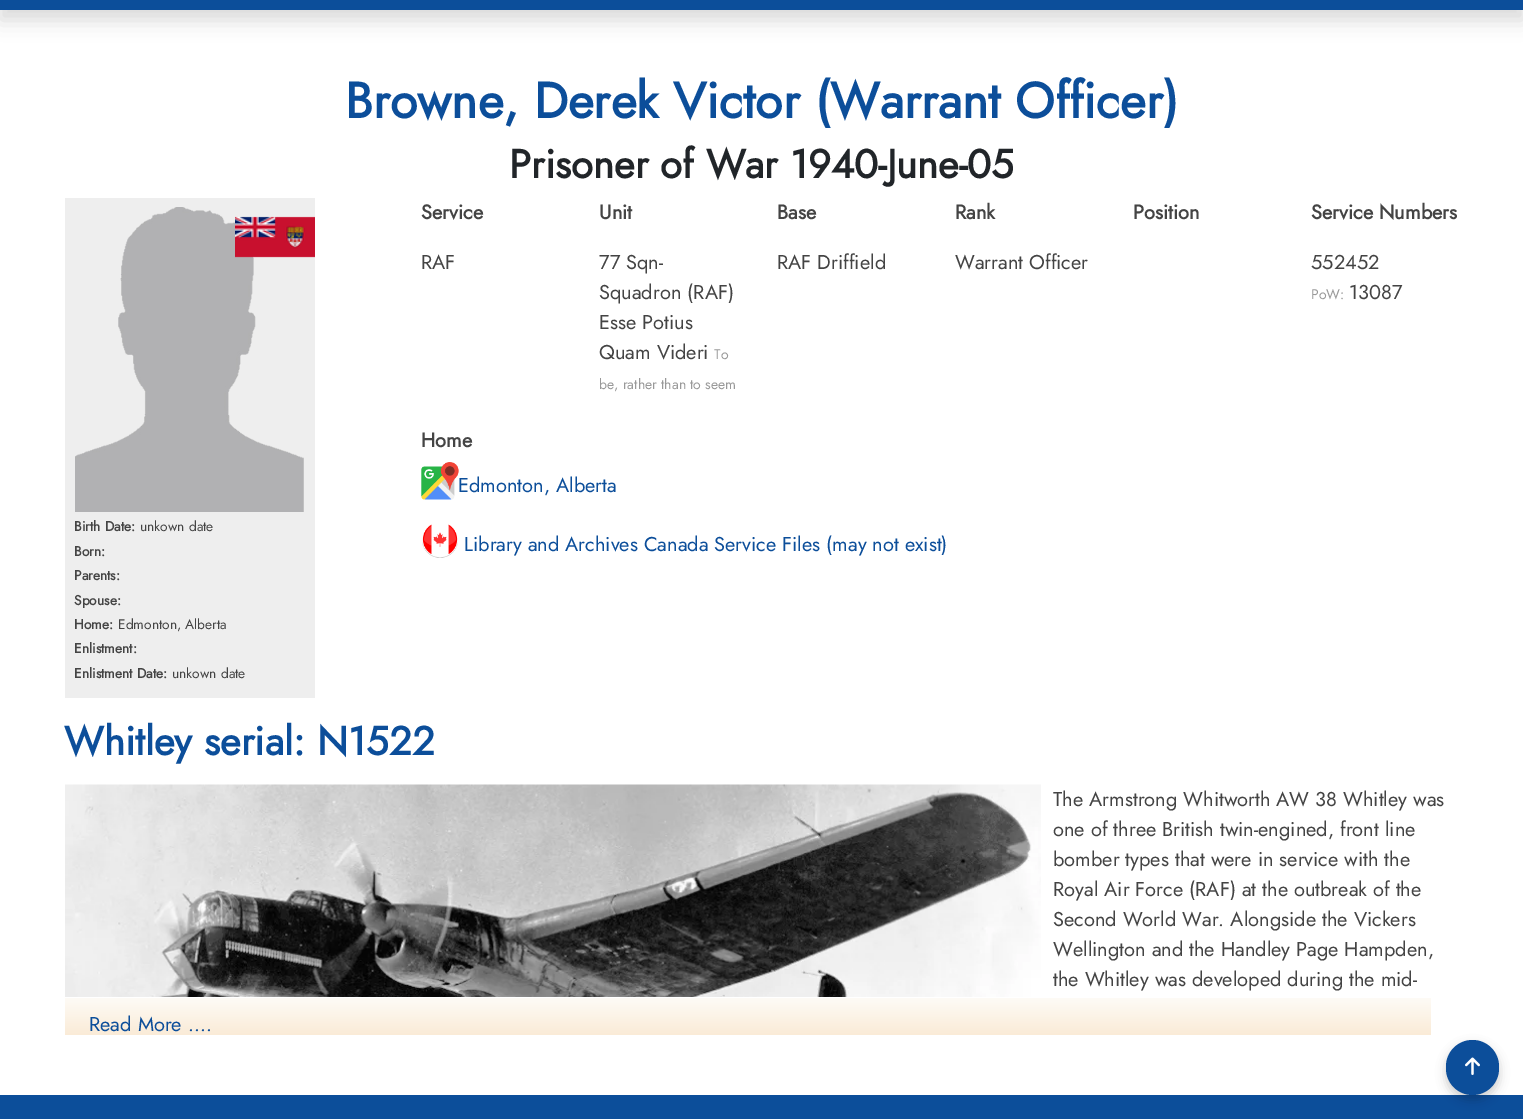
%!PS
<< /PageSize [1523 1119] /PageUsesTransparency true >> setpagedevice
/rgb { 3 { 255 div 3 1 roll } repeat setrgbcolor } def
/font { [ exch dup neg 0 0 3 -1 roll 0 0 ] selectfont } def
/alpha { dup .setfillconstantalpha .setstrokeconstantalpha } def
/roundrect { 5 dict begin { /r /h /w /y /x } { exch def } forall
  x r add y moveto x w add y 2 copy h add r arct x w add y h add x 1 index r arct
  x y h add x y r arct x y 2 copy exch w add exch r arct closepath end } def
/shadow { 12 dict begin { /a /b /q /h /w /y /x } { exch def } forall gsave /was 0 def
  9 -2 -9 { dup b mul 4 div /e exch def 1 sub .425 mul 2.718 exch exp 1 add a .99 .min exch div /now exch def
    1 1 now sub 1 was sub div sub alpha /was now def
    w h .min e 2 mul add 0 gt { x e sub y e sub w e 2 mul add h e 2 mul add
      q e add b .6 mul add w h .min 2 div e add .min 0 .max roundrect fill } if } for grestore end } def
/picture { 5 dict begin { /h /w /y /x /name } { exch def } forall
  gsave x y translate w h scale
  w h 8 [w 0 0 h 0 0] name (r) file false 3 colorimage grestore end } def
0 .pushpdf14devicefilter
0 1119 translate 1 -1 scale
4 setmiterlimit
255 255 255 rgb
0 0 1523 1119 rectfill
0 0 0 rgb
0 -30 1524 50 0 10 0.15 shadow
12 78 154 rgb
0 0 1523 10 rectfill
(img/1.rgb) 421 462 38 38 picture
(img/2.rgb) 422 524 36 34 picture
238 238 238 rgb
65 198 250 500 rectfill
(img/3.rgb) 75 207 229 305 picture
(img/4.rgb) 235 216 80 42 picture
(img/5.rgb) 65 784 976 213 picture
gsave 65 998 moveto 1431 998 lineto 1431 1035 lineto 65 1035 lineto closepath clip newpath
<< /ShadingType 2 /ColorSpace /DeviceRGB /Coords [748 997 748 1035] /Extend [true true] /Function << /FunctionType 2 /Domain [0 1] /C0 [0.996 0.984 0.969] /C1 [0.98 0.922 0.843] /N 1 >> >> shfill grestore
12 78 154 rgb
0 1095 1523 24 rectfill
0 0 0 rgb
1446 1045 53 55 26.5 5 0.2 shadow
12 78 154 rgb
1446 1040 53 55 26.5 roundrect fill
(img/6.rgb) 1465 1057 15 18 picture
/Jost-Bold 50 font
345 118 moveto (Browne, Derek Victor \(Warrant Officer\)) show
/Jost-Bold 40 font
33 37 41 rgb
509 178 moveto (Prisoner of War 1940-June-05) show
/Jost-Bold 20 font
68 68 68 rgb
421 219 moveto (Service) show
/Jost-Regular 20 font
421 269 moveto (RAF) show
/Jost-Bold 20 font
599 219 moveto (Unit) show
/Jost-Regular 20 font
[
  [(77 Sqn-) 599 269]
  [(Squadron \(RAF\)) 599 299]
  [(Esse Potius) 599 329]
  [(Quam Videri) 599 359]
] { aload pop moveto show } forall
/Jost-Regular 14 font
153 153 153 rgb
714 359 moveto (To) show
599 389 moveto (be, rather than to seem) show
/Jost-Bold 20 font
68 68 68 rgb
777 219 moveto (Base) show
/Jost-Regular 20 font
777 269 moveto (RAF Driffield) show
/Jost-Bold 20 font
955 219 moveto (Rank) show
/Jost-Regular 20 font
955 269 moveto (Warrant Officer) show
/Jost-Bold 20 font
1133 219 moveto (Position) show
1311 219 moveto (Service Numbers) show
/Jost-Regular 20 font
1311 269 moveto (552452) show
/Jost-Regular 14 font
153 153 153 rgb
1311 299 moveto (PoW:) show
/Jost-Regular 20 font
68 68 68 rgb
1349 299 moveto (13087) show
/Jost-Bold 20 font
421 447 moveto (Home) show
/Jost-Regular 20 font
12 78 154 rgb
458 492 moveto (Edmonton, Alberta) show
464 551 moveto (Library and Archives Canada Service Files \(may not exist\)) show
/Jost-Bold 13.75 font
68 68 68 rgb
74 531 moveto (Birth Date:) show
/Jost-Regular 13.75 font
140 531 moveto (unkown date) show
/Jost-Bold 13.75 font
[
  [(Born:) 74 556]
  [(Parents:) 74 580]
  [(Spouse:) 74 605]
  [(Home:) 74 629]
] { aload pop moveto show } forall
/Jost-Regular 13.75 font
118 629 moveto (Edmonton, Alberta) show
/Jost-Bold 13.75 font
74 653 moveto (Enlistment:) show
74 678 moveto (Enlistment Date:) show
/Jost-Regular 13.75 font
172 678 moveto (unkown date) show
/Jost-Bold 40 font
12 78 154 rgb
64 755 moveto (Whitley serial: N1522) show
/Jost-Regular 20 font
68 68 68 rgb
[
  [(The Armstrong Whitworth AW 38 Whitley was) 1053 806]
  [(one of three British twin-engined, front line) 1053 836]
  [(bomber types that were in service with the) 1053 866]
  [(Royal Air Force \(RAF\) at the outbreak of the) 1053 896]
  [(Second World War. Alongside the Vickers) 1053 926]
  [(Wellington and the Handley Page Hampden,) 1053 956]
  [(the Whitley was developed during the mid-) 1053 986]
] { aload pop moveto show } forall
12 78 154 rgb
89 1031 moveto (Read More ....) show
.poppdf14devicefilter showpage
